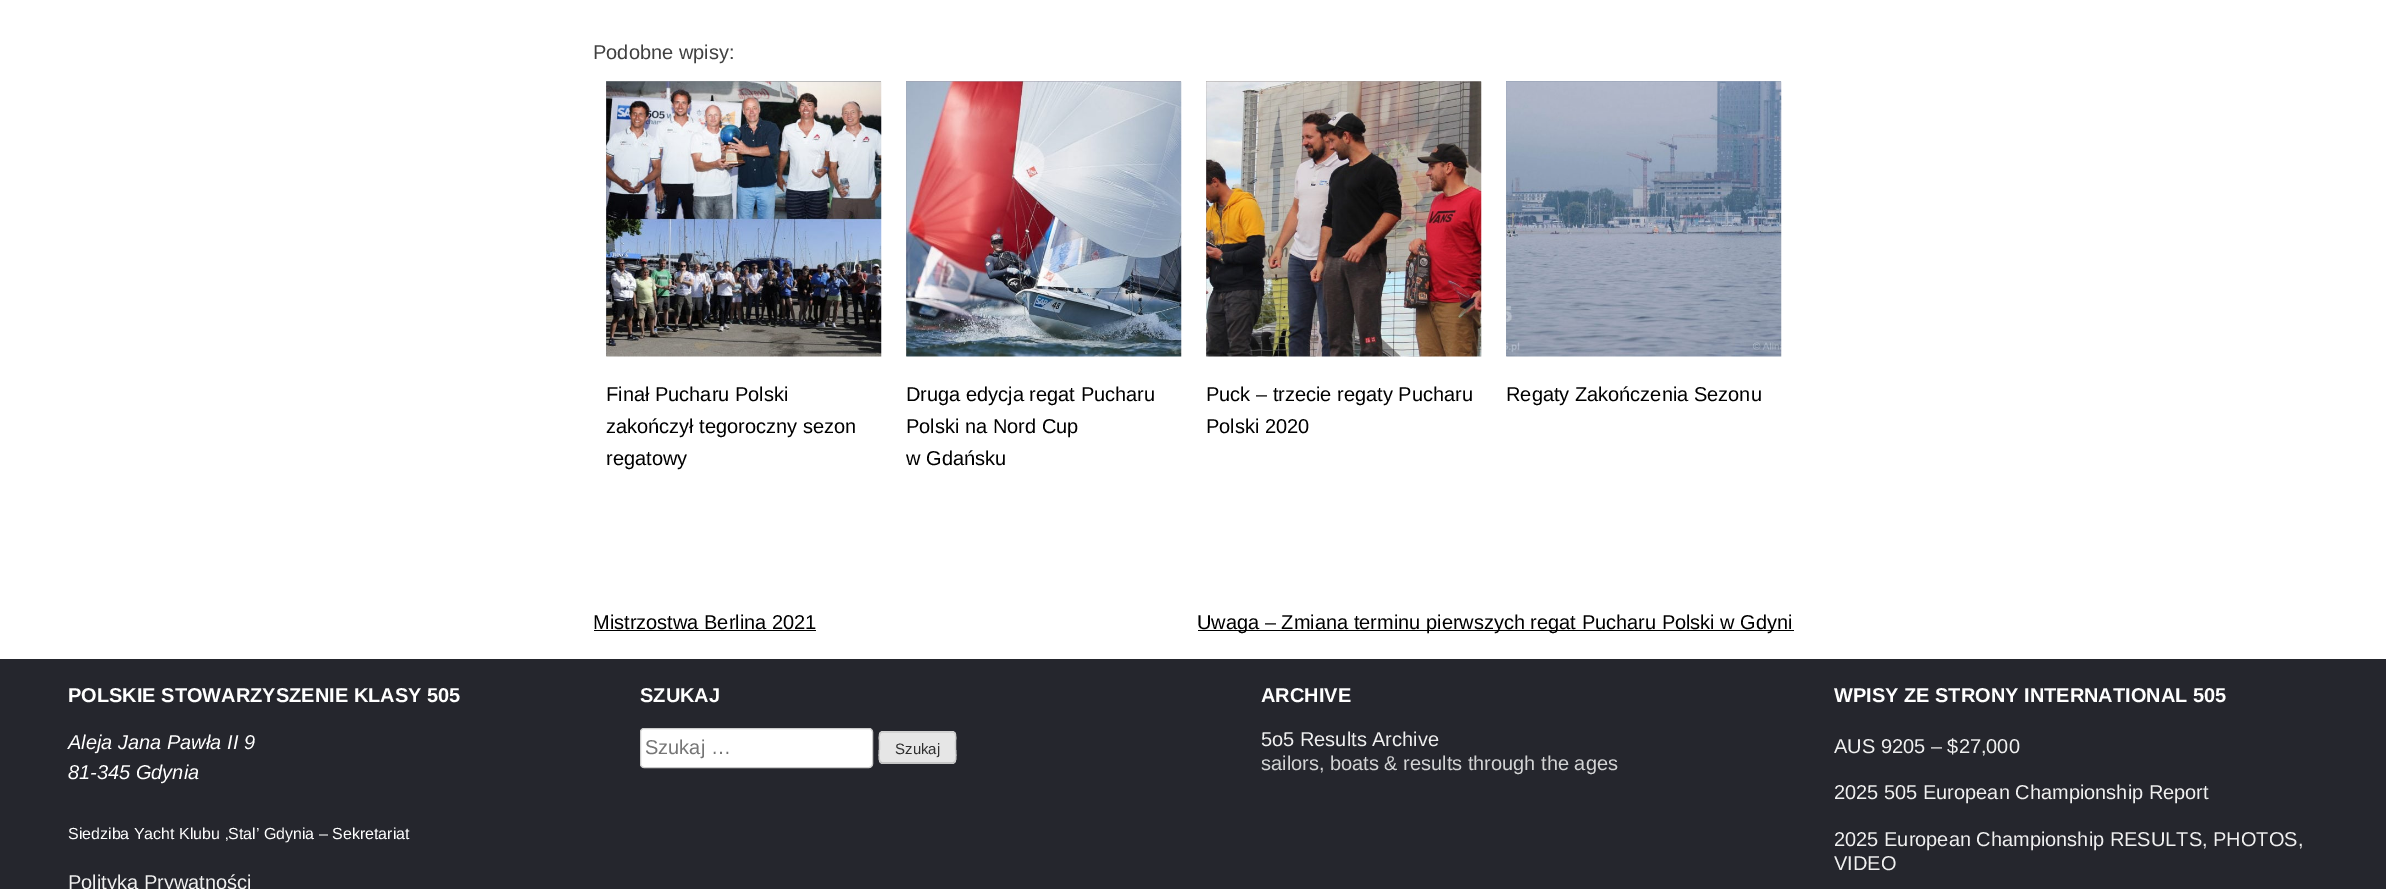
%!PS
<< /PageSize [2386 889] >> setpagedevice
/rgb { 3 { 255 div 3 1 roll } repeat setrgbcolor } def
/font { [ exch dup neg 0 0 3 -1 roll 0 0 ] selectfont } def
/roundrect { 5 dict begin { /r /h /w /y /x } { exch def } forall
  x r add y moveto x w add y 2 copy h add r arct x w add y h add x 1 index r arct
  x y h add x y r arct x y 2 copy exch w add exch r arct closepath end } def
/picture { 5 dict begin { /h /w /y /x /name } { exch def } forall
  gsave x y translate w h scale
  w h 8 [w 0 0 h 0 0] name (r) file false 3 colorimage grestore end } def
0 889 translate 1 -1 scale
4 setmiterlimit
255 255 255 rgb
0 0 2386 889 rectfill
135 139 145 rgb
606 81 275 275 rectfill
(img/1.rgb) 606 81 276 276 picture
158 156 171 rgb
906 81 275 275 rectfill
(img/2.rgb) 906 81 276 276 picture
167 161 161 rgb
1206 81 275 275 rectfill
(img/3.rgb) 1206 81 276 276 picture
146 158 178 rgb
1506 81 275 275 rectfill
(img/4.rgb) 1506 81 276 276 picture
[
  [594 630 222 1 0 0 0]
  [1198 630 596 1 0 0 0]
  [0 659 2386 230 37 38 45]
] { aload pop rgb rectfill } forall
255 255 255 rgb
640.5 728.5 232 39 3.5 roundrect gsave fill grestore
204 204 204 rgb
stroke
230 230 230 rgb
879 731 77 33 4 roundrect fill
187 187 187 rgb
1.2 setlinewidth
954.5 762 moveto 953 763 lineto 882 763 lineto 880.5 762 lineto stroke
204 204 204 rgb
880.5 762 moveto 878 760 879.5 750.5 879.5 747.5 curveto 879.5 729.5 876.5 732 894 732 curveto 941 732 lineto 958.5 732 955.5 729.5 955.5 747.5 curveto 955.5 750.5 957 760 954.5 762 curveto stroke
/LiberationSans-Regular 20 font
64 64 64 rgb
593 59 moveto (Podobne wpisy:) show
0 0 0 rgb
[
  [(Finał Pucharu Polski) 606 401]
  [(zakończył tegoroczny sezon) 606 433]
  [(regatowy) 606 465]
  [(Druga edycja regat Pucharu) 906 401]
  [(Polski na Nord Cup) 906 433]
  [(w Gdańsku) 906 465]
  [(Puck – trzecie regaty Pucharu) 1206 401]
  [(Polski 2020) 1206 433]
  [(Regaty Zakończenia Sezonu) 1506 401]
  [(Mistrzostwa Berlina 2021) 593 629]
  [(Uwaga – Zmiana terminu pierwszych regat Pucharu Polski w Gdyni) 1197 629]
] { aload pop moveto show } forall
/LiberationSans-Bold 20 font
255 255 255 rgb
68 702 moveto (POLSKIE STOWARZYSZENIE KLASY 505) show
/LiberationSans-Italic 20 font
68 749 moveto (Aleja Jana Pawła II 9) show
68 779 moveto (81-345 Gdynia) show
/LiberationSans-Regular 16 font
68 839 moveto (Siedziba Yacht Klubu ‚Stal’ Gdynia – Sekretariat) show
/LiberationSans-Regular 20 font
240 240 240 rgb
68 889 moveto (Polityka Prywatności) show
/LiberationSans-Bold 20 font
255 255 255 rgb
640 702 moveto (SZUKAJ) show
/LiberationSans-Regular 20 font
117 117 117 rgb
645 754 moveto (Szukaj …) show
/LiberationSans-Regular 15 font
46 46 46 rgb
895 754 moveto (Szukaj) show
/LiberationSans-Bold 20 font
255 255 255 rgb
1261 702 moveto (ARCHIVE) show
/LiberationSans-Regular 20 font
240 240 240 rgb
1261 746 moveto (5o5 Results Archive) show
211 212 213 rgb
1261 770 moveto (sailors, boats & results through the ages) show
/LiberationSans-Bold 20 font
255 255 255 rgb
1834 702 moveto (WPISY ZE STRONY INTERNATIONAL 505) show
/LiberationSans-Regular 20 font
240 240 240 rgb
[
  [(AUS 9205 – $27,000) 1834 753]
  [(2025 505 European Championship Report) 1834 799]
  [(2025 European Championship RESULTS, PHOTOS,) 1834 846]
  [(VIDEO) 1834 870]
] { aload pop moveto show } forall
showpage
